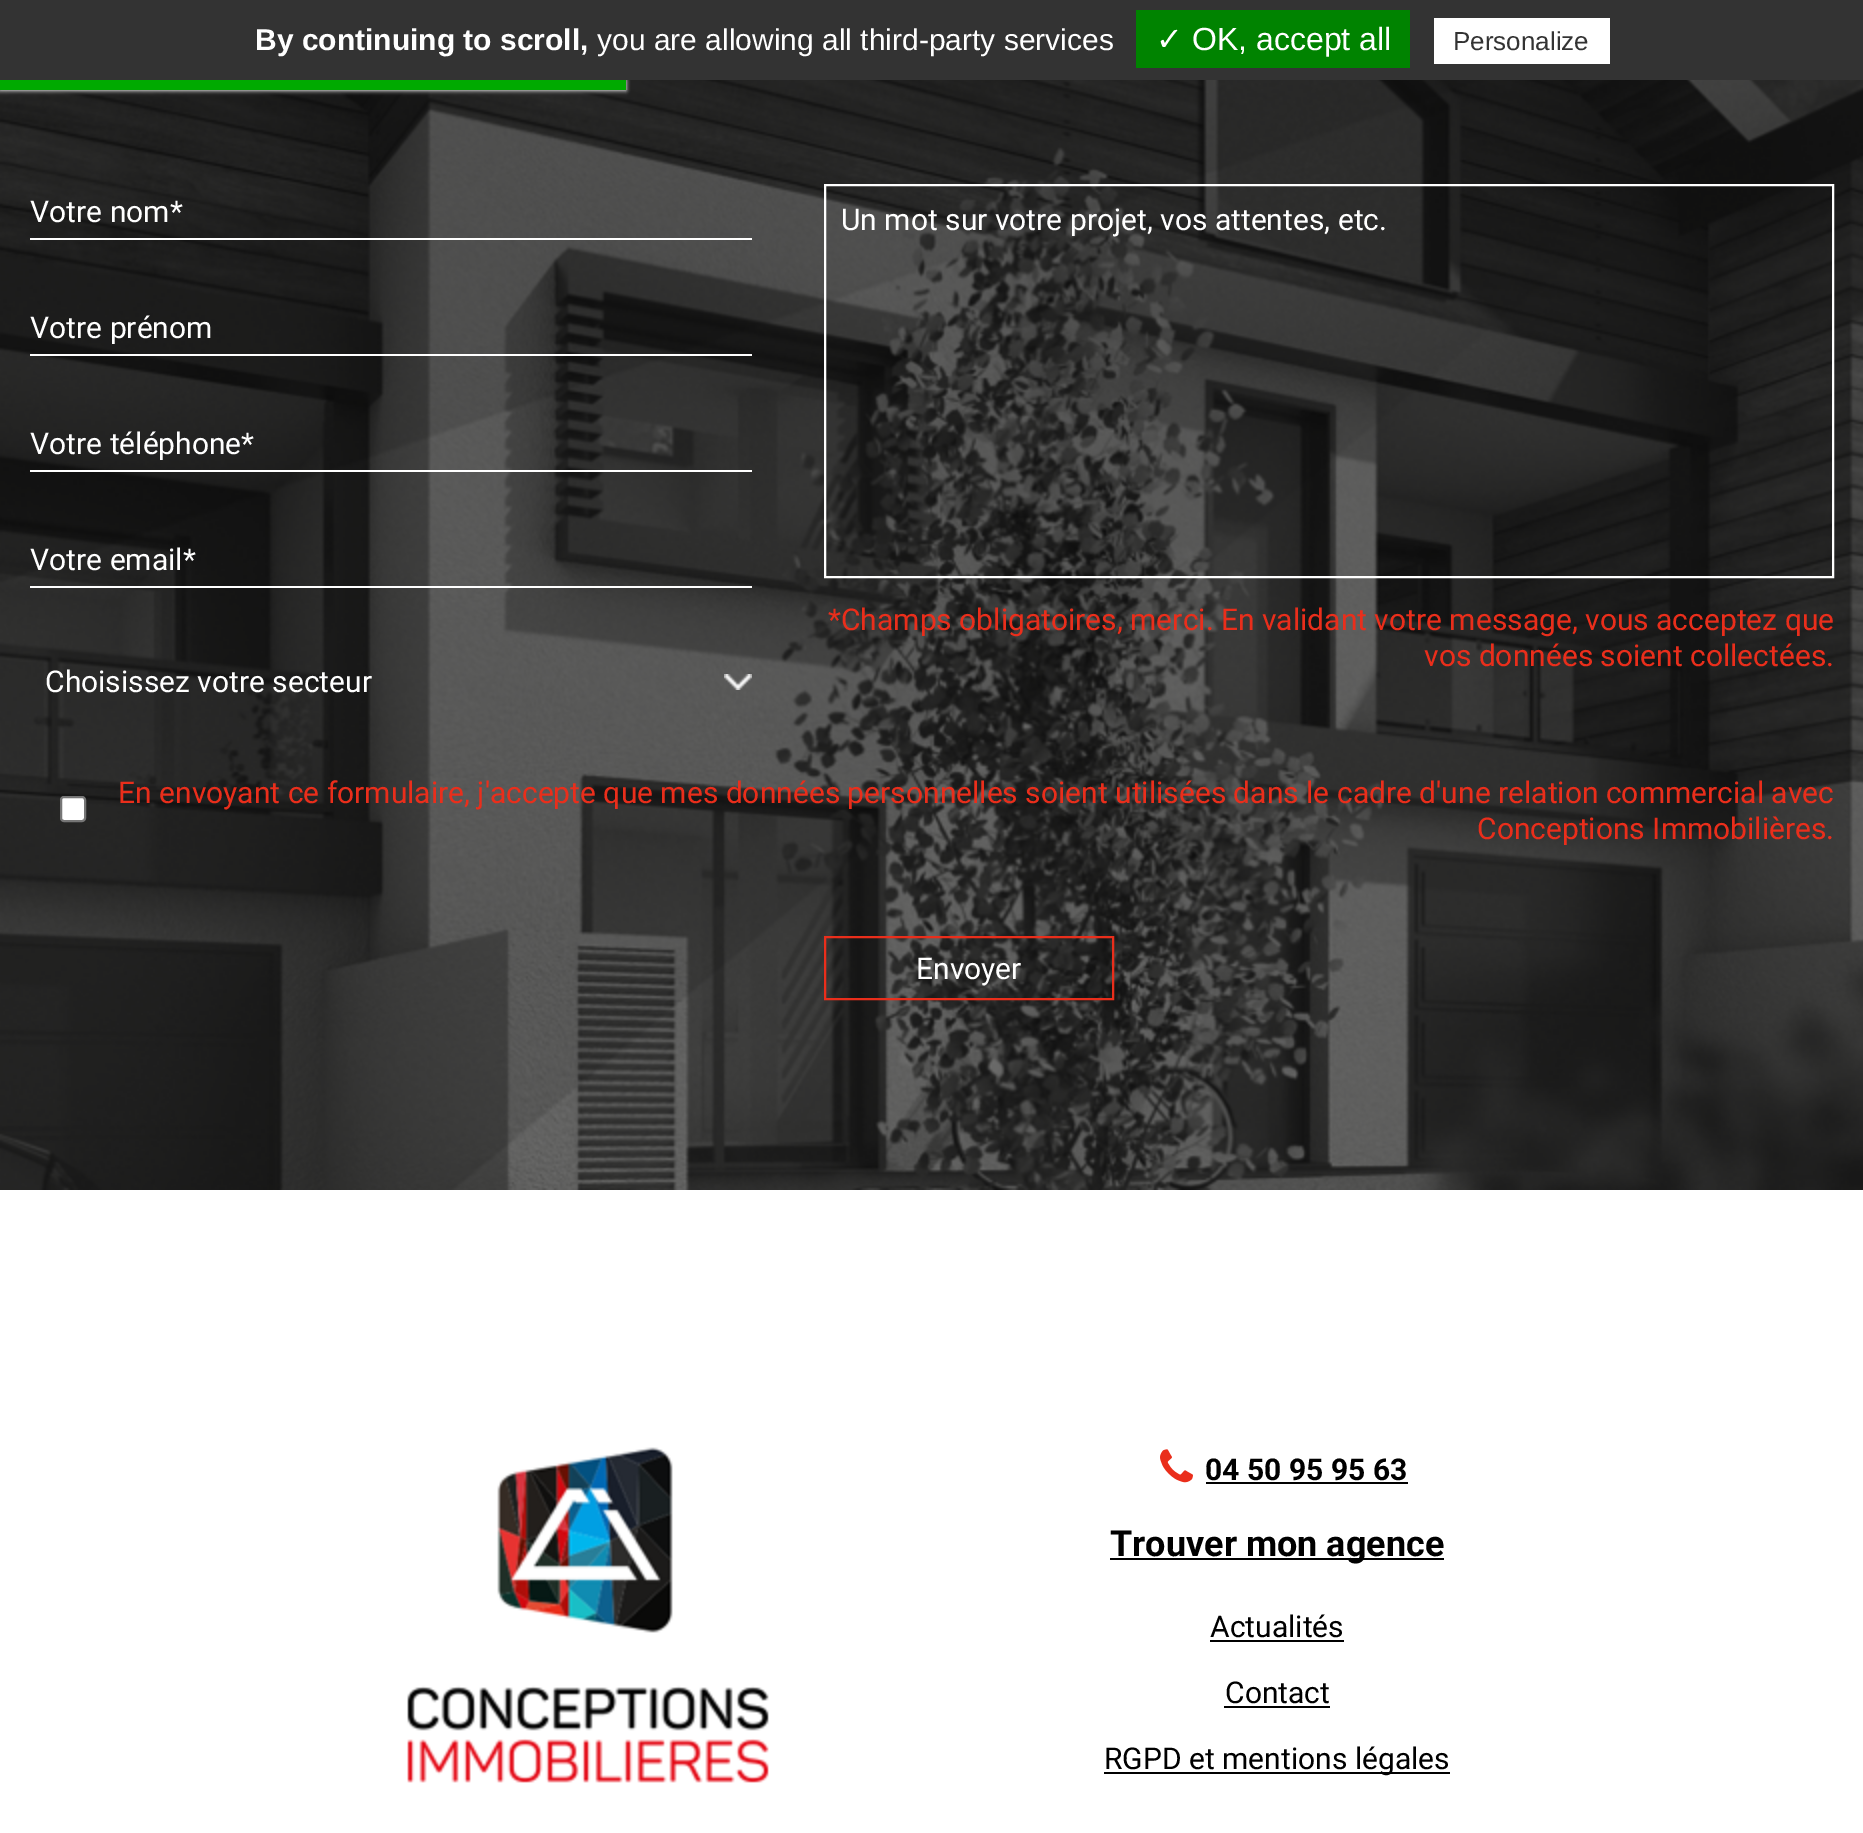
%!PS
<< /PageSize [1863 1833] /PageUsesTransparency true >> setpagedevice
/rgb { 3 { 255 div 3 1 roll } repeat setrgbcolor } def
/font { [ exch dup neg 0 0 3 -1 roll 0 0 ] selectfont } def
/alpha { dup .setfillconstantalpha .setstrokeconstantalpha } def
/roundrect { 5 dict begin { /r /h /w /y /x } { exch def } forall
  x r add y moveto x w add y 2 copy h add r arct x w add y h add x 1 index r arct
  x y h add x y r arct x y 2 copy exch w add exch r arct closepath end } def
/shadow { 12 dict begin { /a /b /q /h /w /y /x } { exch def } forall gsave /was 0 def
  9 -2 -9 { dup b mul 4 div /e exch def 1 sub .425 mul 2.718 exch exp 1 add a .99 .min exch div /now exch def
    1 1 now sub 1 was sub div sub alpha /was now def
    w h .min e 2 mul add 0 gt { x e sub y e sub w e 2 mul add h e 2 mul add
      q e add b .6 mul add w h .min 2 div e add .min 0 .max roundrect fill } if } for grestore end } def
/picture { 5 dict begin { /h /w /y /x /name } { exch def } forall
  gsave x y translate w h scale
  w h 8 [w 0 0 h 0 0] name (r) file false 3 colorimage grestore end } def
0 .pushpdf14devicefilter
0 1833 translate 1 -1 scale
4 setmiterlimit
255 255 255 rgb
0 0 1863 1833 rectfill
(img/1.rgb) 0 80 1863 1110 picture
85 85 85 rgb
0 82 626 10 0 2 1 shadow
255 255 255 rgb
0 80 626 10 0 2 1 shadow
[
  [0 0 1863 80 51 51 51]
  [1136 10 274 58 0 131 0]
  [1434 18 176 46 255 255 255]
  [0 80 626 10 0 170 0]
  [30 238 722 2 255 255 255]
] { aload pop rgb rectfill } forall
2 setlinewidth
825 185 1008 392 rectstroke
[
  [30 354 722 2 255 255 255]
  [30 470 722 2 255 255 255]
  [30 586 722 2 255 255 255]
] { aload pop rgb rectfill } forall
(img/2.rgb) 724 674 28 16 picture
61 797 24 24 3 roundrect gsave fill grestore
118 118 118 rgb
stroke
234 46 27 rgb
825 937 288 62 rectstroke
(img/3.rgb) 407 1447 362 336 picture
(img/4.rgb) 1160 1449 33 34 picture
[
  [1206 1482 202 2 0 0 0]
  [1110 1558 334 2 0 0 0]
  [1210 1640 134 2 0 0 0]
  [1224 1706 106 2 0 0 0]
  [1104 1772 346 2 0 0 0]
] { aload pop rgb rectfill } forall
/LiberationSans-Bold 30 font
255 255 255 rgb
255 50 moveto (By continuing to scroll,) show
/LiberationSans-Regular 30 font
597 50 moveto (you are allowing all third-party services) show
/DejaVuSans-Regular 32 font
1156 50 moveto (✓) show
/LiberationSans-Regular 32 font
1192 50 moveto (OK, accept all) show
/LiberationSans-Regular 26 font
51 51 51 rgb
1453 50 moveto (Personalize) show
/Roboto-Regular 30 font
255 255 255 rgb
30 222 moveto (Votre nom*) show
841 230 moveto (Un mot sur votre projet, vos attentes, etc.) show
234 46 27 rgb
828 630 moveto (*Champs obligatoires, merci. En validant votre message, vous acceptez que) show
1424 666 moveto (vos données soient collectées.) show
255 255 255 rgb
[
  [(Votre prénom) 30 338]
  [(Votre téléphone*) 30 454]
  [(Votre email*) 30 570]
  [(Choisissez votre secteur) 45 692]
] { aload pop moveto show } forall
234 46 27 rgb
118 803 moveto (En envoyant ce formulaire, j'accepte que mes données personnelles soient utilisées dans le cadre d'une relation commercial avec) show
1477 839 moveto (Conceptions Immobilières.) show
255 255 255 rgb
916 979 moveto (Envoyer) show
/Roboto-Bold 30 font
0 0 0 rgb
1205 1480 moveto (04 50 95 95 63) show
/Roboto-Bold 36 font
1110 1556 moveto (Trouver mon agence) show
/Roboto-Regular 30 font
[
  [(Actualités) 1210 1637]
  [(Contact) 1225 1703]
  [(RGPD et mentions légales) 1104 1769]
] { aload pop moveto show } forall
.poppdf14devicefilter showpage
